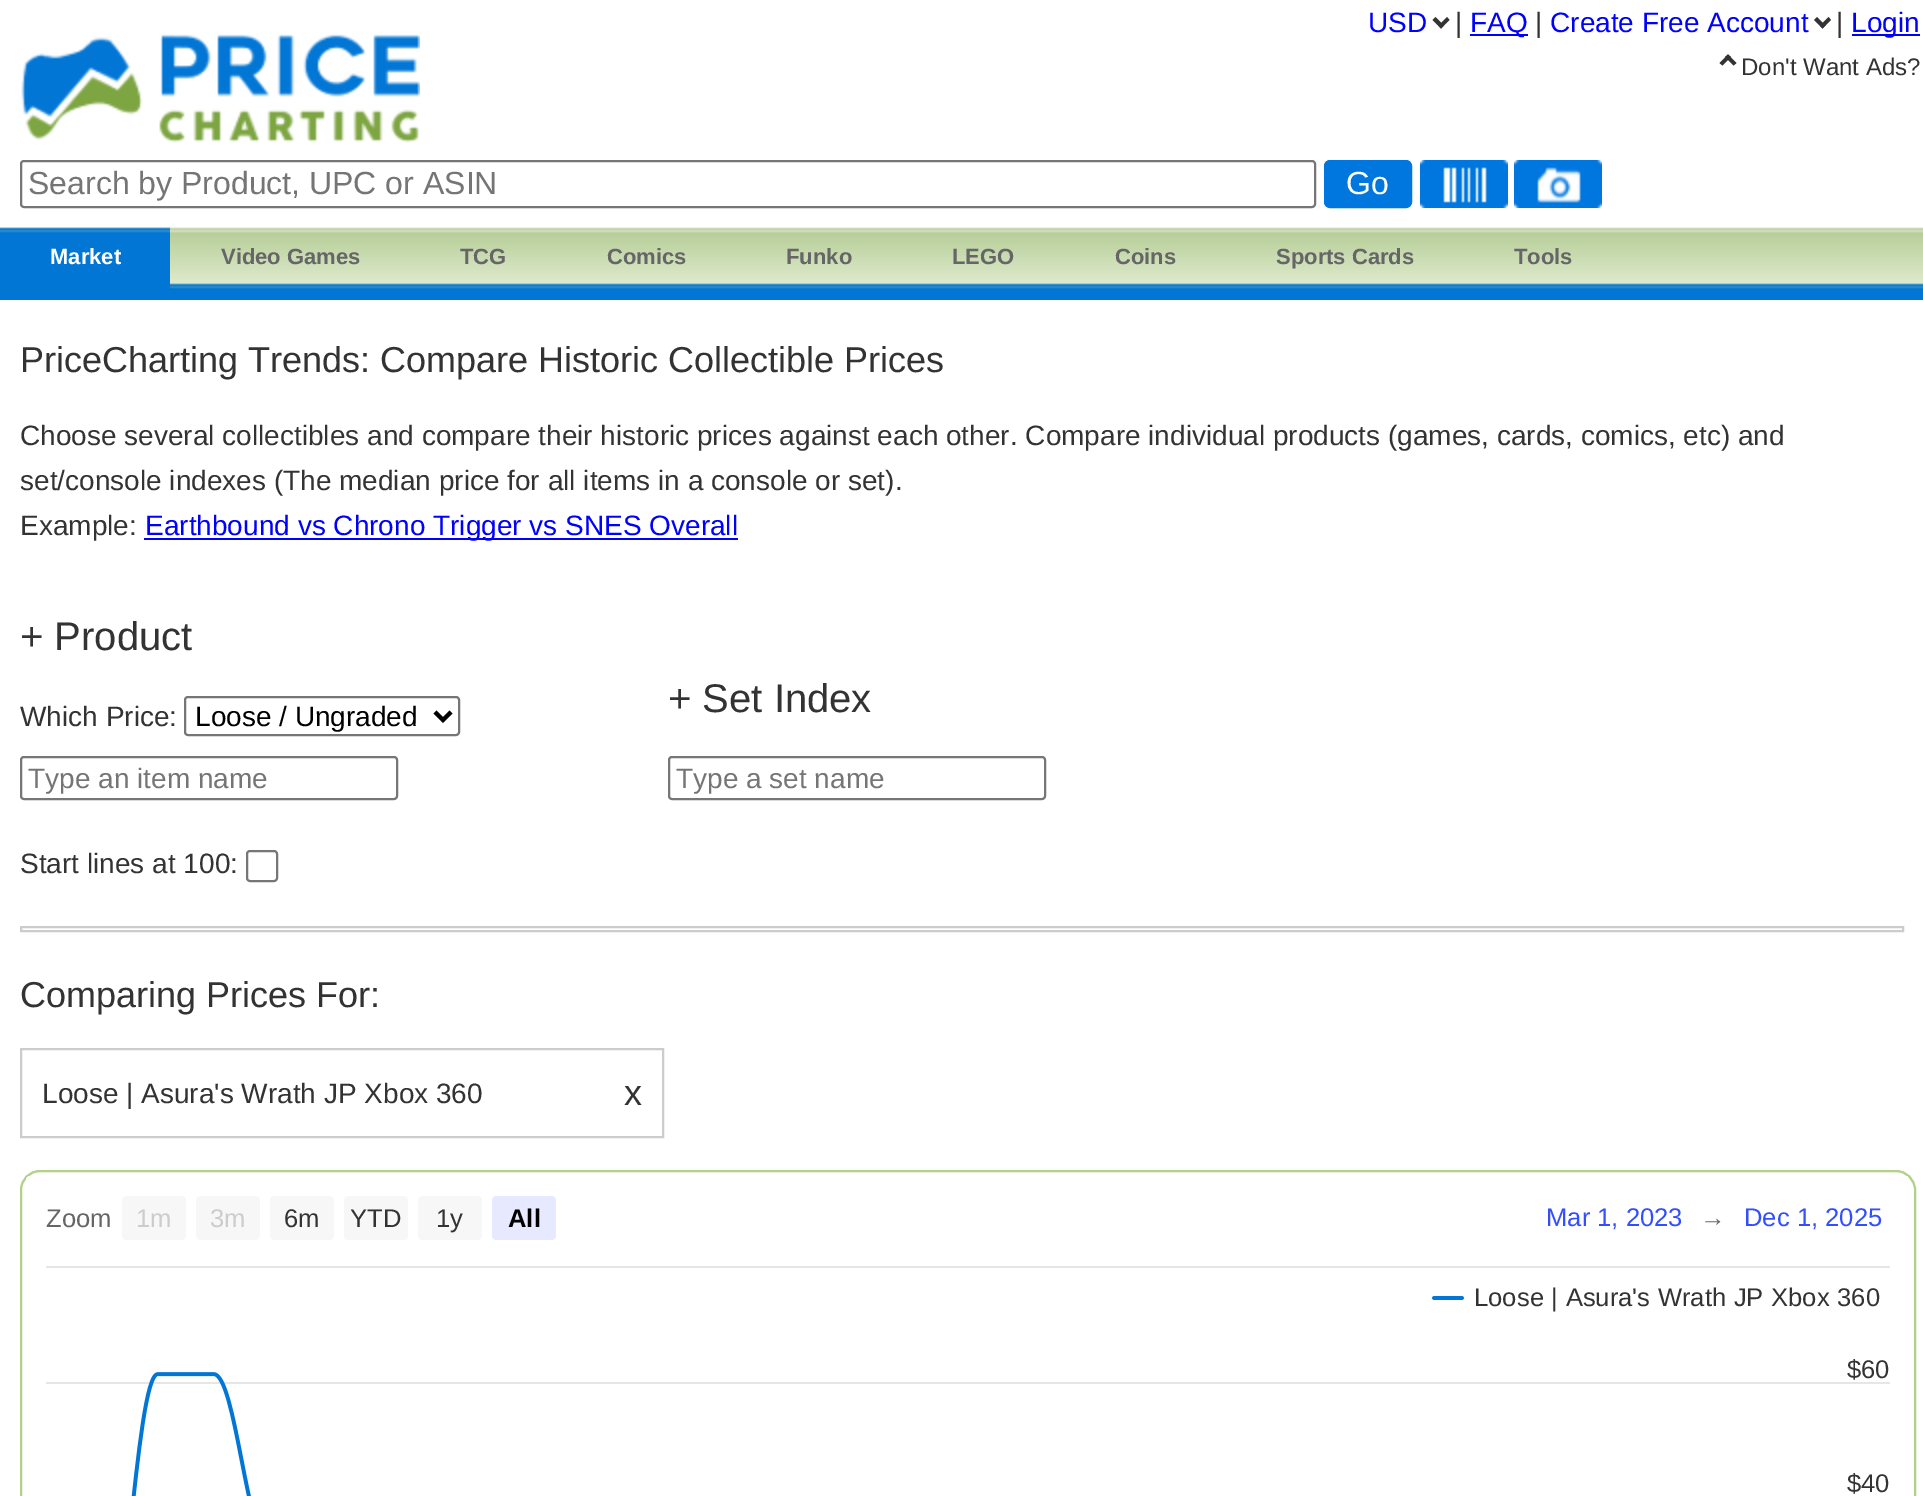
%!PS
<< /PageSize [1923 1496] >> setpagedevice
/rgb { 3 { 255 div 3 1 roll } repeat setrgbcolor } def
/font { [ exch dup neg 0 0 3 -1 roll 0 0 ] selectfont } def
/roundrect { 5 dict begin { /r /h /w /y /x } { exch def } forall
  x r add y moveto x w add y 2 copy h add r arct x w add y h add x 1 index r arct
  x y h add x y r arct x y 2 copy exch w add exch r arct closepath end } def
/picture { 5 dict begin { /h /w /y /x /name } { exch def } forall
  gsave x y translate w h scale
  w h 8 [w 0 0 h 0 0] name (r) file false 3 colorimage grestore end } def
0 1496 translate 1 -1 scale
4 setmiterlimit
255 255 255 rgb
0 0 1923 1496 rectfill
51 51 51 rgb
1447 17 moveto 1449.5 20 lineto 1441 28.5 lineto 1438.5 25.5 lineto closepath fill
1435.5 17 moveto 1444 25.5 lineto 1441 28.5 lineto 1432.5 20 lineto closepath fill
0 0 255 rgb
1470 34 58 2 rectfill
51 51 51 rgb
1828.5 17 moveto 1831 20 lineto 1822.5 28.5 lineto 1820 25.5 lineto closepath fill
1817 17 moveto 1825.5 25.5 lineto 1822.5 28.5 lineto 1814 20 lineto closepath fill
0 0 255 rgb
1852 34 68 2 rectfill
51 51 51 rgb
1722.5 65.5 moveto 1719.5 63 lineto 1728 54.5 lineto 1731 57 lineto closepath fill
1733.5 65.5 moveto 1725 57 lineto 1728 54.5 lineto 1736.5 63 lineto closepath fill
(img/1.rgb) 21 34 399 109 picture
118 118 118 rgb
2 setlinewidth
21 161 1294 46 3 roundrect stroke
0 118 223 rgb
1325 161 86 46 5 roundrect gsave fill grestore
stroke
(img/2.rgb) 1420 160 88 48 picture
(img/3.rgb) 1514 160 88 48 picture
(img/4.rgb) 0 227 1923 73 picture
(img/5.rgb) 0 227 170 63 picture
0 0 255 rgb
144 538 594 2 rectfill
118 118 118 rgb
185 697 274 38 3 roundrect stroke
0 0 0 rgb
4 setlinewidth
435 712 moveto 443 720 lineto 451 712 lineto stroke
118 118 118 rgb
2 setlinewidth
21 757 376 42 3 roundrect stroke
669 757 376 42 3 roundrect stroke
247 851 30 30 3 roundrect stroke
204 204 204 rgb
21 927 1882 4 rectstroke
21 1049 642 88 rectstroke
177 209 136 rgb
21 1171 1894 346 19 roundrect stroke
(img/6.rgb) 26 1176 1882 320 picture
/LiberationSans-Regular 28 font
0 0 255 rgb
1368 32 moveto (USD) show
51 51 51 rgb
1455 32 moveto (|) show
0 0 255 rgb
1470 32 moveto (FAQ) show
51 51 51 rgb
1535 32 moveto (|) show
0 0 255 rgb
1550 32 moveto (Create Free Account) show
51 51 51 rgb
1836 32 moveto (|) show
0 0 255 rgb
1851 32 moveto (Login) show
/LiberationSans-Regular 24 font
51 51 51 rgb
1741 75 moveto (Don't Want Ads?) show
/LiberationSans-Regular 32 font
117 117 117 rgb
28 194 moveto (Search by Product, UPC or ASIN) show
255 255 255 rgb
1346 194 moveto (Go) show
/LiberationSans-Bold 22 font
50 264 moveto (Market) show
102 102 102 rgb
[
  [(Video Games) 221 264]
  [(TCG) 460 264]
  [(Comics) 607 264]
  [(Funko) 786 264]
  [(LEGO) 952 264]
  [(Coins) 1115 264]
  [(Sports Cards) 1276 264]
  [(Tools) 1514 264]
] { aload pop moveto show } forall
/LiberationSans-Regular 36 font
51 51 51 rgb
20 372 moveto (PriceCharting Trends: Compare Historic Collectible Prices) show
/LiberationSans-Regular 28 font
[
  [(Choose several collectibles and compare their historic prices against each other. Compare individual products \(games, cards, comics, etc\) and) 20 445]
  [(set/console indexes \(The median price for all items in a console or set\).) 20 490]
  [(Example:) 20 535]
] { aload pop moveto show } forall
0 0 255 rgb
145 535 moveto (Earthbound vs Chrono Trigger vs SNES Overall) show
/LiberationSans-Regular 40 font
51 51 51 rgb
20 650 moveto (+ Product) show
/LiberationSans-Regular 28 font
20 726 moveto (Which Price:) show
0 0 0 rgb
195 726 moveto (Loose / Ungraded) show
117 117 117 rgb
28 788 moveto (Type an item name) show
/LiberationSans-Regular 40 font
51 51 51 rgb
668 712 moveto (+ Set Index) show
/LiberationSans-Regular 28 font
117 117 117 rgb
676 788 moveto (Type a set name) show
51 51 51 rgb
20 873 moveto (Start lines at 100:) show
/LiberationSans-Regular 36 font
20 1007 moveto (Comparing Prices For:) show
/LiberationSans-Regular 28 font
42 1103 moveto (Loose | Asura's Wrath JP Xbox 360) show
/LiberationSans-Regular 36 font
624 1105 moveto (x) show
/LiberationSans-Regular 25.6 font
102 102 102 rgb
46 1227 moveto (Zoom) show
204 204 204 rgb
136 1227 moveto (1m) show
210 1227 moveto (3m) show
51 51 51 rgb
[
  [(6m) 284 1227]
  [(YTD) 350 1227]
  [(1y) 436 1227]
] { aload pop moveto show } forall
/LiberationSans-Bold 25.6 font
0 0 0 rgb
508 1227 moveto (All) show
/LiberationSans-Regular 25.6 font
51 78 255 rgb
1546 1226 moveto (Mar 1, 2023) show
102 102 102 rgb
1700 1226 moveto (→) show
51 78 255 rgb
1744 1226 moveto (Dec 1, 2025) show
51 51 51 rgb
1474 1306 moveto 0.5 0 32 (Loose | Asura's Wrath JP Xbox 360) widthshow
1847 1378 moveto ($60) show
1847 1492 moveto ($40) show
showpage
